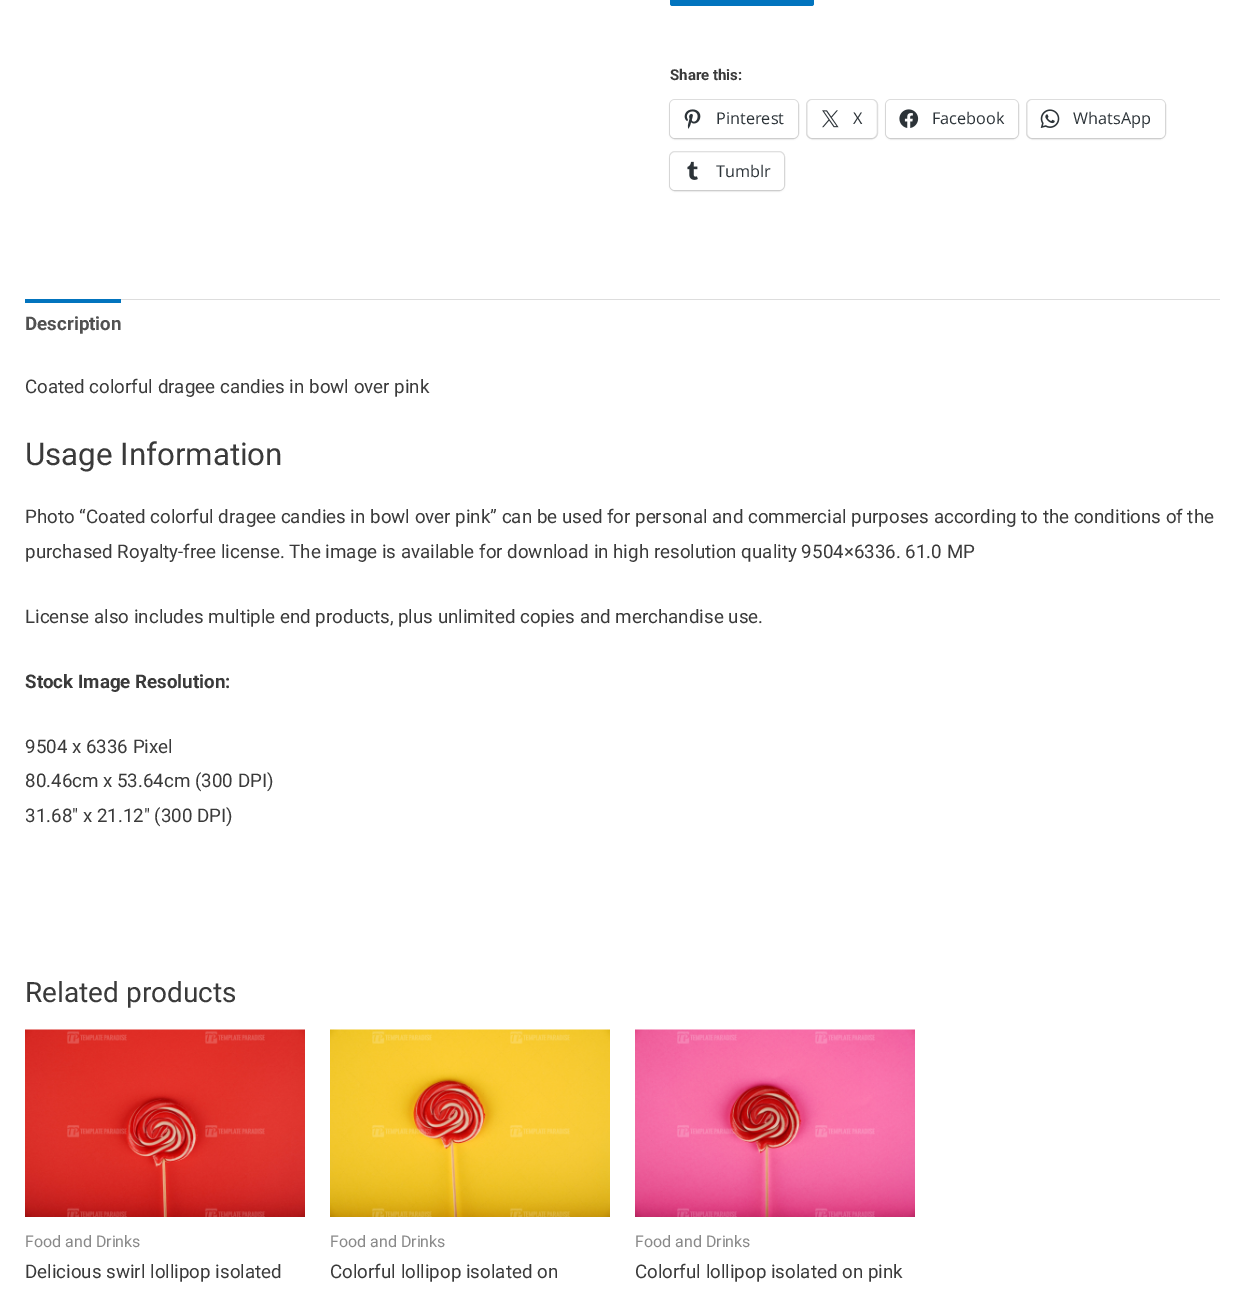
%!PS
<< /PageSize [1245 1289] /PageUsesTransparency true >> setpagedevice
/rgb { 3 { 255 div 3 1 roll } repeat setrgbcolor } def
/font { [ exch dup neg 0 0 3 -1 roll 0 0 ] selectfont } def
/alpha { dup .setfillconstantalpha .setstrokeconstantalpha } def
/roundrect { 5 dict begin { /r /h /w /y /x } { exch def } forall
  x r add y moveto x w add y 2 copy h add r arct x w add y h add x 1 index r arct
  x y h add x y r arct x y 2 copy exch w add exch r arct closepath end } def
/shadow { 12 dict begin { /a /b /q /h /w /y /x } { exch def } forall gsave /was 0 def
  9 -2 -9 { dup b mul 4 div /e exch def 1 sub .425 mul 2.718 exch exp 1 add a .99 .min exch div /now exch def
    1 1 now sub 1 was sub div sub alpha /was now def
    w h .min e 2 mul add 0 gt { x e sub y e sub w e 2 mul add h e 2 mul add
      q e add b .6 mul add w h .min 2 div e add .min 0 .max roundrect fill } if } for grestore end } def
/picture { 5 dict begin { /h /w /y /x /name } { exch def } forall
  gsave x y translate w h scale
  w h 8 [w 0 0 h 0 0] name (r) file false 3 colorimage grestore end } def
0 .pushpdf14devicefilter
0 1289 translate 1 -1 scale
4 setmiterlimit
255 255 255 rgb
0 0 1245 1289 rectfill
2 116 190 rgb
670 -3 144 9 2.5 roundrect fill
224 224 224 rgb
669.5 99.5 129 39 5.5 roundrect stroke
0 0 0 rgb
670 101 128 38 5 1 0.12 shadow
255 255 255 rgb
670 100 128 38 5 roundrect fill
(img/1.rgb) 684 109 17 20 picture
224 224 224 rgb
806.5 99.5 71 39 5.5 roundrect stroke
0 0 0 rgb
808 101 68 38 5 1 0.12 shadow
255 255 255 rgb
808 100 68 38 5 roundrect fill
(img/2.rgb) 822 110 17 18 picture
224 224 224 rgb
885.5 99.5 133 39 5.5 roundrect stroke
0 0 0 rgb
886 101 132 38 5 1 0.12 shadow
255 255 255 rgb
886 100 132 38 5 roundrect fill
(img/3.rgb) 899 109 20 19 picture
224 224 224 rgb
1026.5 99.5 139 39 5.5 roundrect stroke
0 0 0 rgb
1028 101 137 38 5 1 0.12 shadow
255 255 255 rgb
1028 100 137 38 5 roundrect fill
(img/4.rgb) 1040 109 20 19 picture
224 224 224 rgb
669.5 151.5 115 39 5.5 roundrect stroke
0 0 0 rgb
670 154 114 37 5 1 0.12 shadow
255 255 255 rgb
670 153 114 37 5 roundrect fill
(img/5.rgb) 687 161 11 19 picture
221 221 221 rgb
121 299 1099 1 rectfill
2 116 190 rgb
25 299 96 4 rectfill
(img/6.rgb) 25 1029 280 188 picture
(img/7.rgb) 330 1029 280 188 picture
(img/8.rgb) 635 1029 280 188 picture
/Roboto-Bold 15 font
58 58 58 rgb
670 80 moveto (Share this:) show
/OpenSans-Regular 16.25 font
44 51 56 rgb
[
  [(Pinterest) 716 124]
  [(X) 853 124]
  [(Facebook) 932 124]
  [(WhatsApp) 1073 124]
  [(Tumblr) 716 177]
] { aload pop moveto show } forall
/Roboto-Bold 18.75 font
81 81 81 rgb
25 330 moveto (Description) show
/Roboto-Regular 18.75 font
58 58 58 rgb
25 393 moveto (Coated colorful dragee candies in bowl over pink) show
/Roboto-Regular 31.25 font
25 465 moveto (Usage Information) show
/Roboto-Regular 18.75 font
[
  [(Photo “Coated colorful dragee candies in bowl over pink” can be used for personal and commercial purposes according to the conditions of the) 25 523]
  [(purchased Royalty-free license. The image is available for download in high resolution quality 9504×6336. 61.0 MP) 25 558]
  [(License also includes multiple end products, plus unlimited copies and merchandise use.) 25 623]
] { aload pop moveto show } forall
/Roboto-Bold 18.75 font
25 688 moveto (Stock Image Resolution:) show
/Roboto-Regular 18.75 font
[
  [(9504 x 6336 Pixel) 25 753]
  [(80.46cm x 53.64cm \(300 DPI\)) 25 787]
  [(31.68″ x 21.12″ \(300 DPI\)) 25 822]
] { aload pop moveto show } forall
/Roboto-Regular 28 font
25 1002 moveto (Related products) show
/Roboto-Regular 16 font
137 137 137 rgb
25 1247 moveto (Food and Drinks) show
/Roboto-Regular 18.75 font
58 58 58 rgb
25 1278 moveto (Delicious swirl lollipop isolated) show
/Roboto-Regular 16 font
137 137 137 rgb
330 1247 moveto (Food and Drinks) show
/Roboto-Regular 18.75 font
58 58 58 rgb
330 1278 moveto (Colorful lollipop isolated on) show
/Roboto-Regular 16 font
137 137 137 rgb
635 1247 moveto (Food and Drinks) show
/Roboto-Regular 18.75 font
58 58 58 rgb
635 1278 moveto (Colorful lollipop isolated on pink) show
.poppdf14devicefilter showpage
